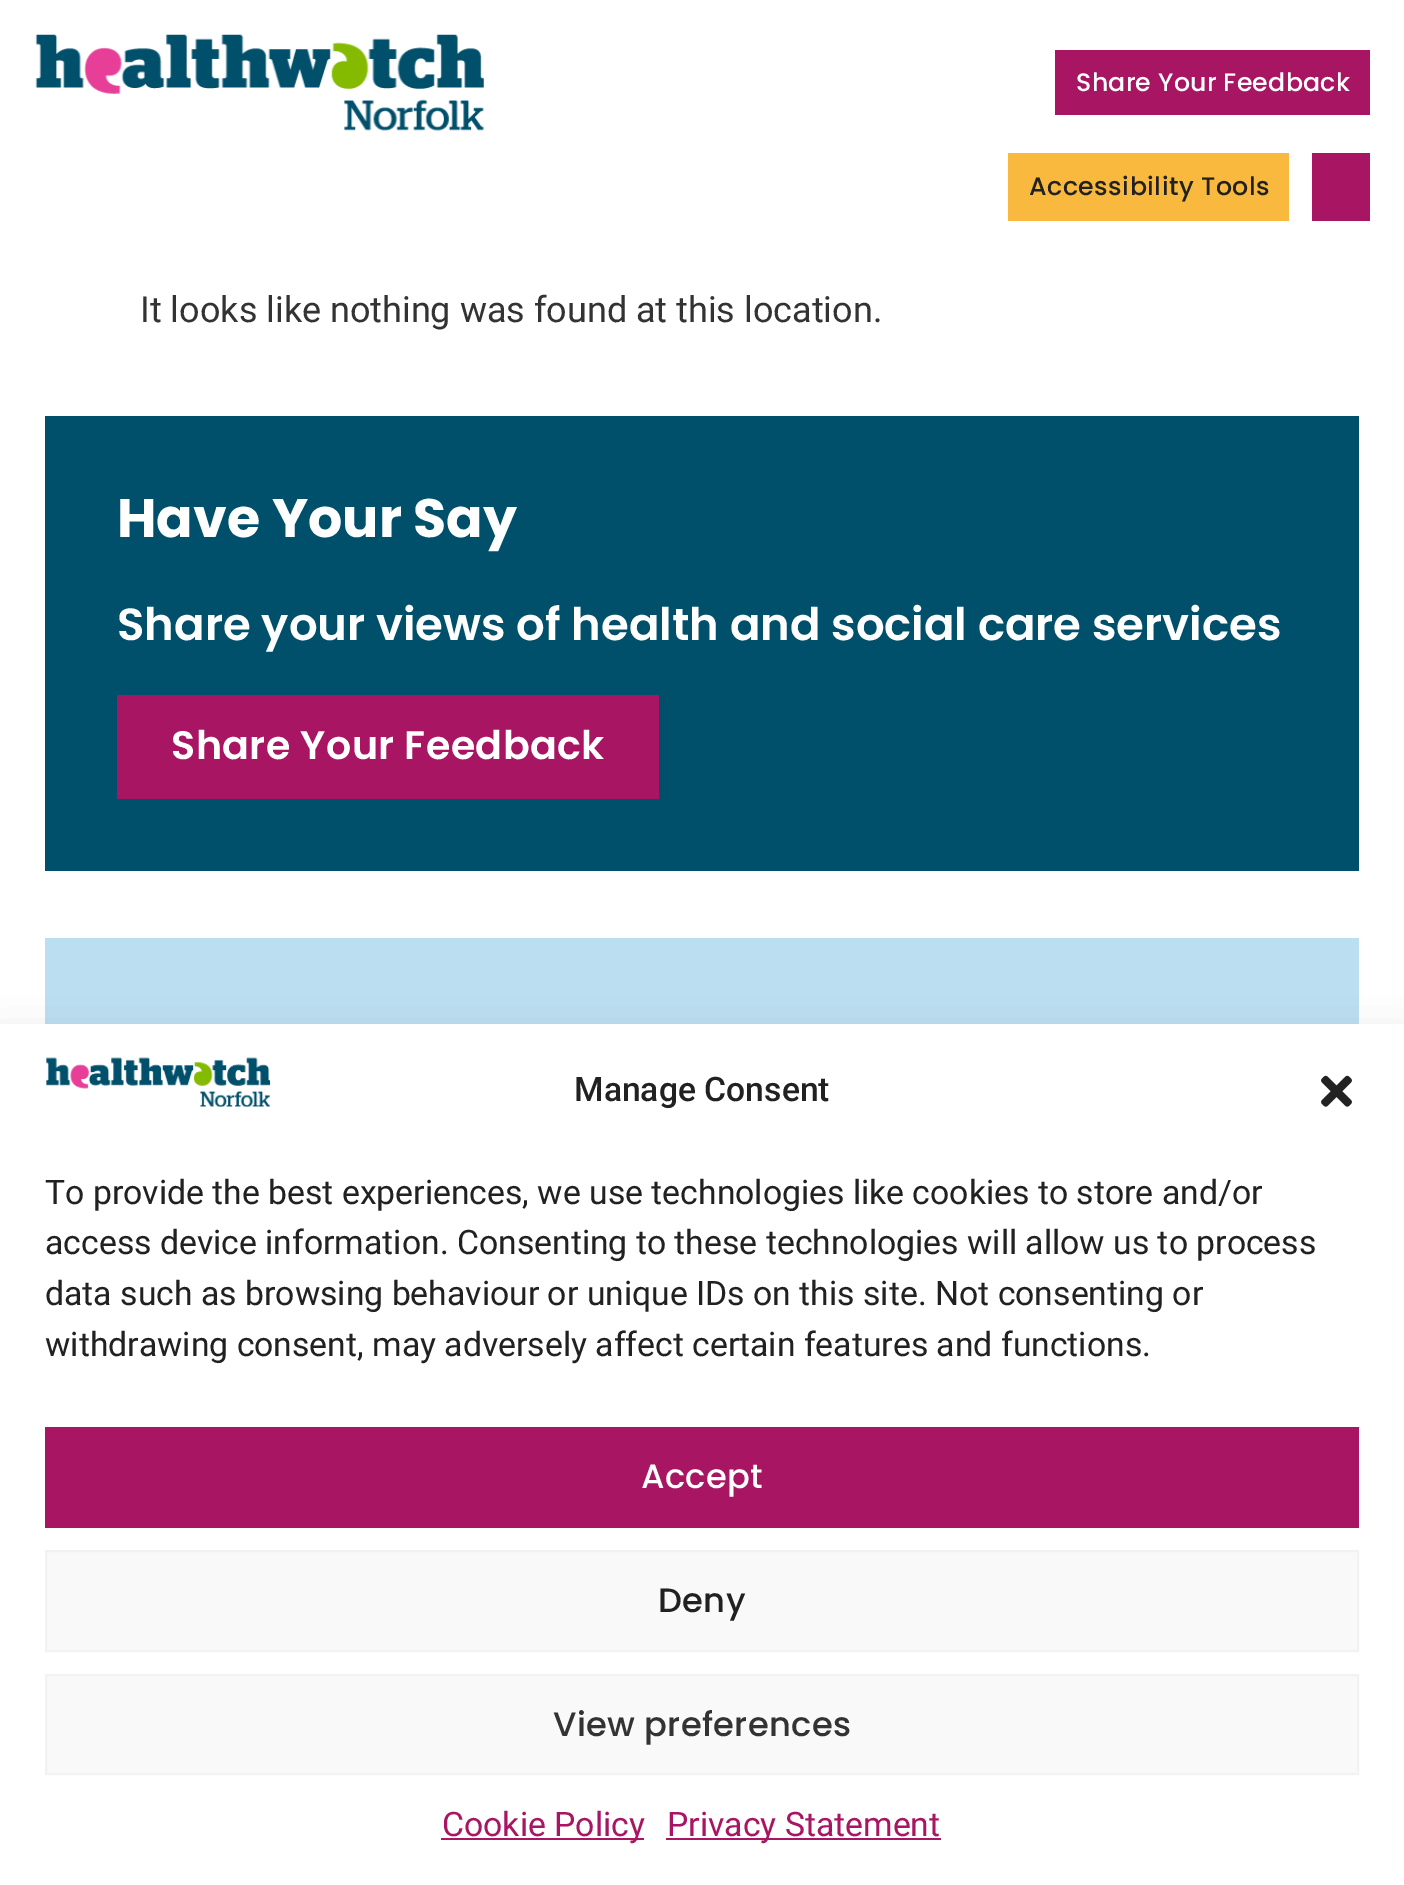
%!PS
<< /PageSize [1404 1885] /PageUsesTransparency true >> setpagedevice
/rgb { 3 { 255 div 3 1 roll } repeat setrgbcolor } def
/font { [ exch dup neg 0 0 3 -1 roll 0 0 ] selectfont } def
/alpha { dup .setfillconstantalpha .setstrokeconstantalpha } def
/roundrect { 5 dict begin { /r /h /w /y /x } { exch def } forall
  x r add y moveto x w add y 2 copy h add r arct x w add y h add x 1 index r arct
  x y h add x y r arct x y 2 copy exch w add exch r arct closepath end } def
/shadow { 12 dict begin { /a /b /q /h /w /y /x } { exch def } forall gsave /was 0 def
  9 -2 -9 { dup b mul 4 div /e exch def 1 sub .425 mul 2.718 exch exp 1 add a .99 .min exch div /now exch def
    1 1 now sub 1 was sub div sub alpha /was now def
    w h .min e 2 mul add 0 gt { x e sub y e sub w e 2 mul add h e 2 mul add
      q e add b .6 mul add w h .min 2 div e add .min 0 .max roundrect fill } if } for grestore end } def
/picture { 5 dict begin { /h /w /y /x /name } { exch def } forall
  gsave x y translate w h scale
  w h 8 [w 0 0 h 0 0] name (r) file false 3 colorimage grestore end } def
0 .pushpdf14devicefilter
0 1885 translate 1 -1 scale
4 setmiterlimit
255 255 255 rgb
0 0 1404 1885 rectfill
(img/1.rgb) 35 34 449 97 picture
[
  [1055 50 315 65 168 21 99]
  [1008 153 281 68 249 185 62]
  [1312 153 58 68 168 21 99]
  [45 416 1314 455 0 79 107]
  [117 695 542 104 168 21 99]
  [45 938 1314 86 187 223 241]
] { aload pop rgb rectfill } forall
0 0 0 rgb
0 1046 1404 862 0 22.5 0.19 shadow
255 255 255 rgb
0 1024 1404 861 rectfill
(img/2.rgb) 46 1057 224 50 picture
(img/3.rgb) 1321 1075 31 32 picture
168 21 99 rgb
45 1427 1314 101 rectfill
249 249 249 rgb
46 1551 moveto 1358 1551 lineto 1358 1651 lineto 46 1651 lineto closepath gsave fill grestore
242 242 242 rgb
2 setlinewidth
stroke
249 249 249 rgb
46 1675 moveto 1358 1675 lineto 1358 1774 lineto 46 1774 lineto closepath gsave fill grestore
242 242 242 rgb
stroke
168 21 99 rgb
441 1838 203 2 rectfill
666 1838 275 2 rectfill
/Poppins-Medium 25.25 font
255 255 255 rgb
1076 91 moveto 0.25 0 (Share Your Feedback) ashow
33 33 33 rgb
1029 195 moveto 0.5 0 (Accessibility Tools) ashow
/Roboto-Regular 36 font
51 51 51 rgb
140 322 moveto (It looks like nothing was found at this location.) show
/Poppins-Bold 54 font
255 255 255 rgb
117 537 moveto (Have Your Say) show
/Poppins-SemiBold 45 font
117 640 moveto (Share your views of health and social care services) show
/Poppins-SemiBold 39.6 font
171 759 moveto 0.4 0 (Share Your Feedback) ashow
/Roboto-Medium 33.75 font
33 33 33 rgb
574 1101 moveto (Manage Consent) show
/Roboto-Regular 33.75 font
[
  [(To provide the best experiences, we use technologies like cookies to store and/or) 45 1204]
  [(access device information. Consenting to these technologies will allow us to process) 45 1254]
  [(data such as browsing behaviour or unique IDs on this site. Not consenting or) 45 1305]
  [(withdrawing consent, may adversely affect certain features and functions.) 45 1356]
] { aload pop moveto show } forall
/Poppins-Medium 33.75 font
255 255 255 rgb
641 1488 moveto 0.3 0 (Accept) ashow
33 33 33 rgb
658 1612 moveto 0.3 0 (Deny) ashow
51 51 51 rgb
553 1736 moveto 0.3 0 (View preferences) ashow
/Roboto-Regular 33.75 font
168 21 99 rgb
442 1836 moveto (Cookie Policy) show
667 1836 moveto (Privacy Statement) show
.poppdf14devicefilter showpage
